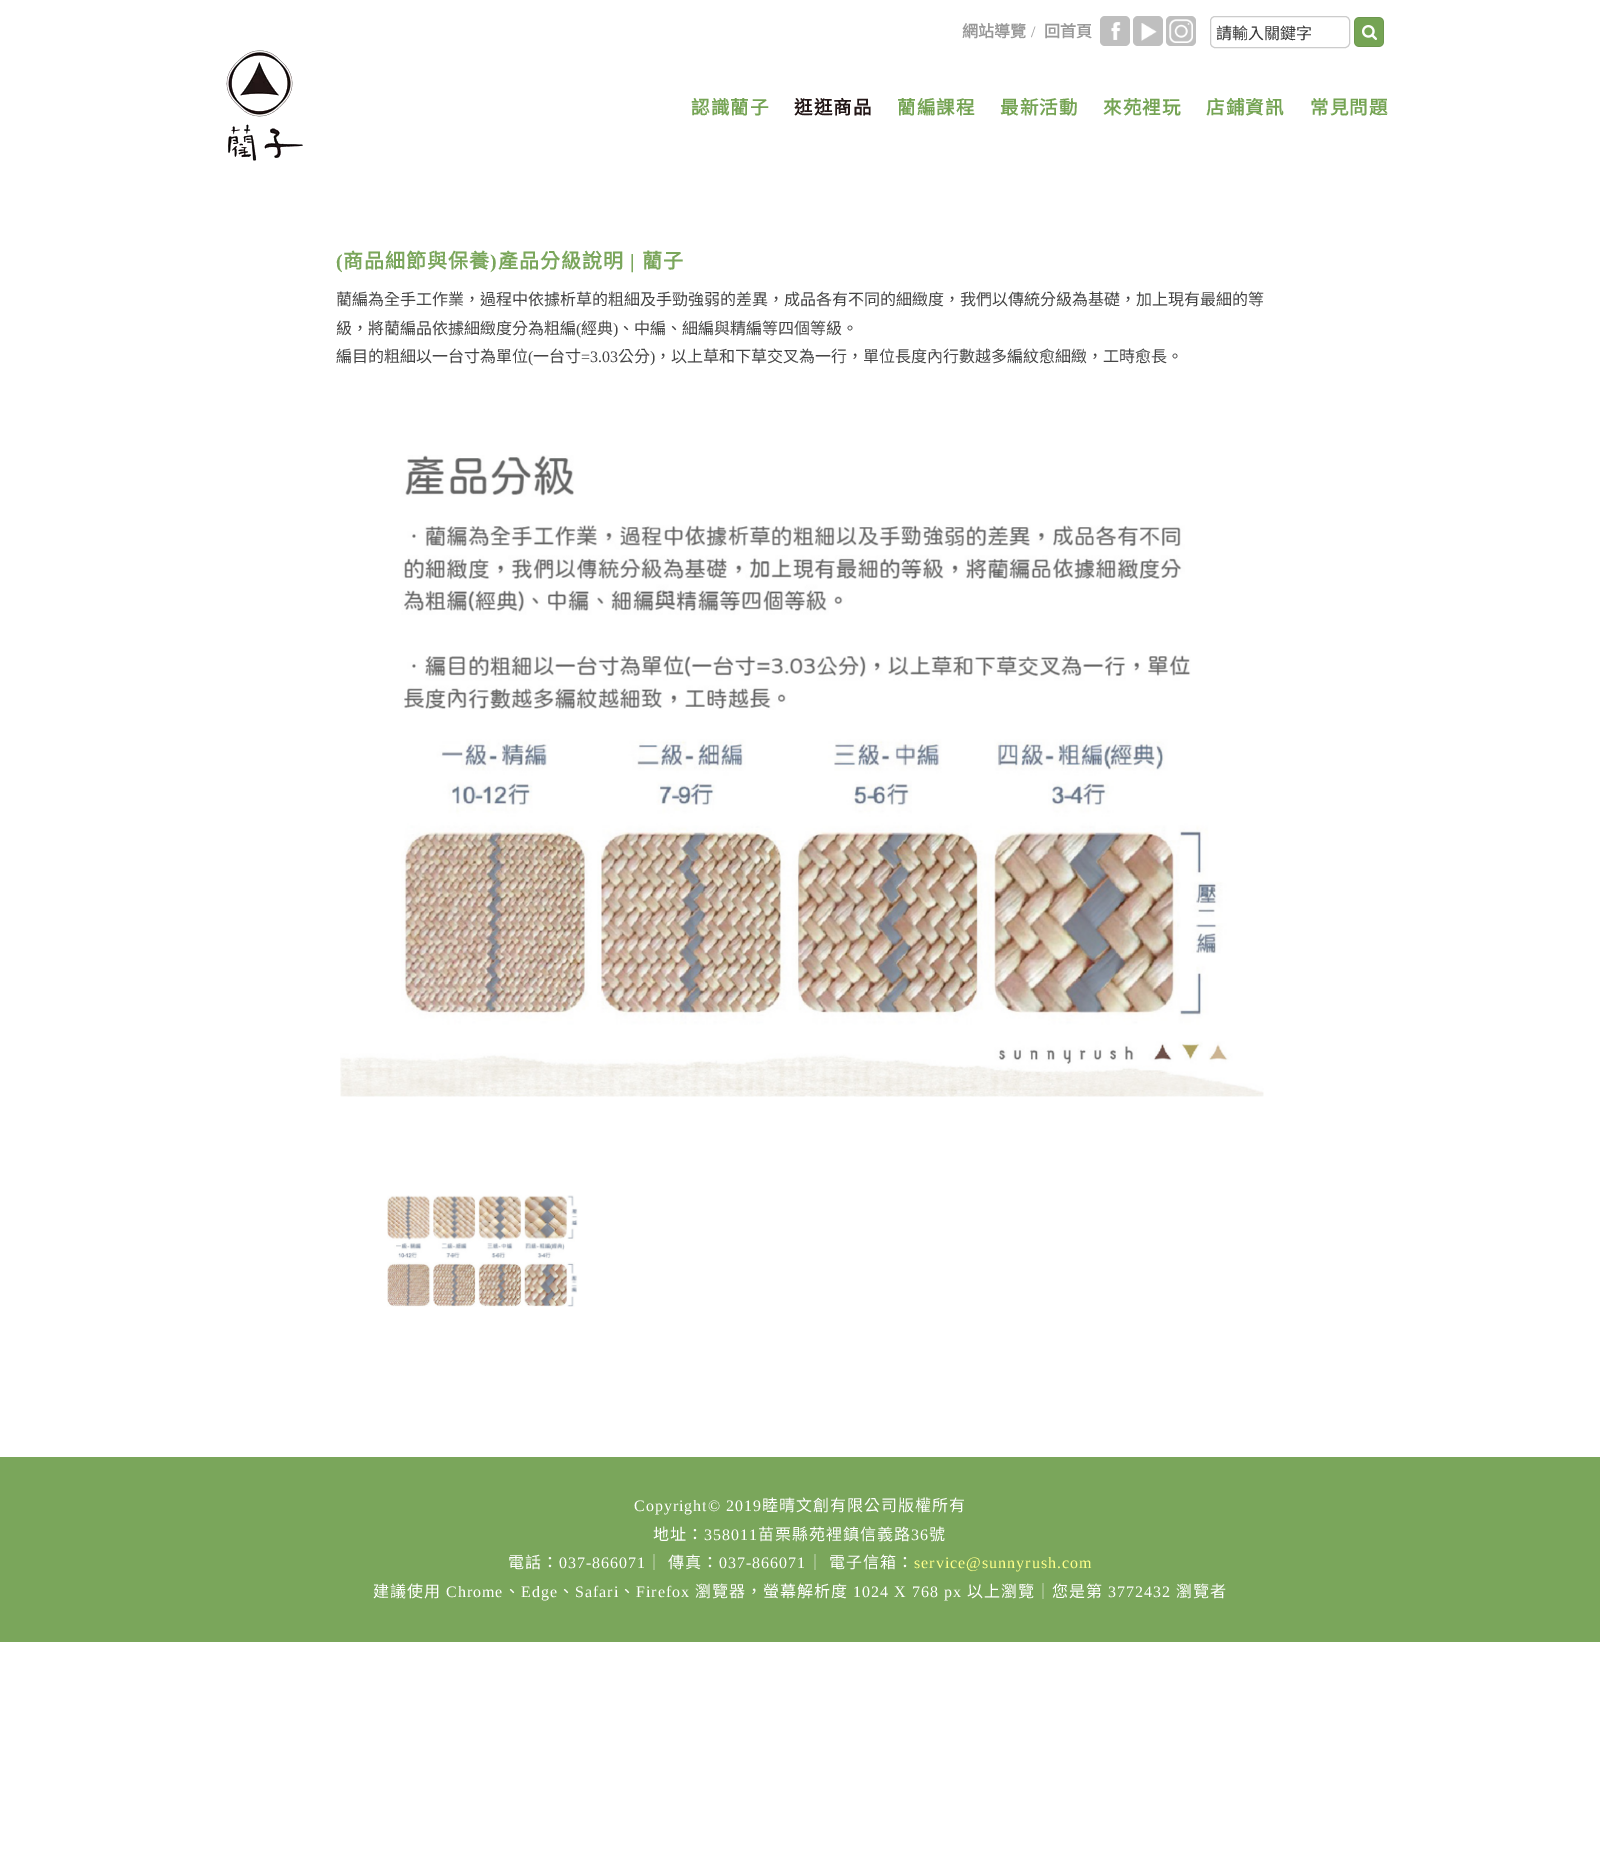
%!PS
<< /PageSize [1600 1854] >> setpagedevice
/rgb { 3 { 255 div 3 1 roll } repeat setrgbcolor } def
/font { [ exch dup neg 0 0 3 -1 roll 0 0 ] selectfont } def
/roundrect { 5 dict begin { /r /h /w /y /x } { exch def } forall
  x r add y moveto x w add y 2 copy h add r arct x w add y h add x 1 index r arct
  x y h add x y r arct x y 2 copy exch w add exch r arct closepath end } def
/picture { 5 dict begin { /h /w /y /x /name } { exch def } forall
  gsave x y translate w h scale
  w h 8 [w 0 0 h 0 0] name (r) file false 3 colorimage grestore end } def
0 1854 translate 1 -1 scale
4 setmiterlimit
255 255 255 rgb
0 0 1600 1854 rectfill
191 191 191 rgb
1100 16 30 30 5 roundrect fill
(img/1.rgb) 1111 22 10 18 picture
1133 16 30 30 5 roundrect fill
(img/2.rgb) 1141 23 16 18 picture
1166 16 30 30 5 roundrect fill
(img/3.rgb) 1169 19 24 24 picture
204 204 204 rgb
1210.5 16.5 139 31 4.5 roundrect stroke
(img/4.rgb) 1354 17 30 30 picture
(img/5.rgb) 226 50 77 111 picture
(img/6.rgb) 340 455 924 642 picture
(img/7.rgb) 387 1195 191 112 picture
122 166 91 rgb
0 1457 1600 185 rectfill
/NotoSansCJKTC-Bold 16 font
153 153 153 rgb
962 37 moveto (網站導覽) show
/LiberationSerif-Regular 16 font
1031 37 moveto (/) show
/NotoSansCJKTC-Bold 16 font
1044 37 moveto (回首頁) show
/NotoSansCJKTC-Regular 16 font
51 51 51 rgb
1216 39 moveto (請輸入關鍵字) show
/NotoSansCJKTC-Bold 18.5 font
117 164 84 rgb
691 114 moveto 1 0 (認識藺子) ashow
35 23 23 rgb
794 114 moveto 1 0 (逛逛商品) ashow
117 164 84 rgb
897 114 moveto 1 0 (藺編課程) ashow
1000 114 moveto 1 0 (最新活動) ashow
1103 114 moveto 1 0 (來苑裡玩) ashow
1206 114 moveto 1 0 (店鋪資訊) ashow
1310 114 moveto 1 0 (常見問題) ashow
/LiberationSerif-Bold 20 font
122 166 91 rgb
336 268 moveto 1 0 (\() ashow
/NotoSansCJKTC-Bold 20 font
343 268 moveto 1 0 (商品細節與保養) ashow
/LiberationSerif-Bold 20 font
490 268 moveto 1 0 (\)) ashow
/NotoSansCJKTC-Bold 20 font
498 268 moveto 1 0 (產品分級說明) ashow
/LiberationSerif-Bold 20 font
630 268 moveto 1 0 (|) ashow
/NotoSansCJKTC-Bold 20 font
642 268 moveto 1 0 (藺子) ashow
/NotoSansCJKTC-Regular 16 font
69 69 69 rgb
336 305 moveto (藺編為全手工作業，過程中依據析草的粗細及手勁強弱的差異，成品各有不同的細緻度，我們以傳統分級為基礎，加上現有最細的等) show
336 334 moveto (級，將藺編品依據細緻度分為粗編) show
/LiberationSerif-Regular 16 font
576 334 moveto (\() show
/NotoSansCJKTC-Regular 16 font
581 334 moveto (經典) show
/LiberationSerif-Regular 16 font
613 334 moveto (\)) show
/NotoSansCJKTC-Regular 16 font
618 334 moveto (、中編、細編與精編等四個等級。) show
336 362 moveto (編目的粗細以一台寸為單位) show
/LiberationSerif-Regular 16 font
528 362 moveto (\() show
/NotoSansCJKTC-Regular 16 font
533 362 moveto (一台寸) show
/LiberationSerif-Regular 16 font
581 362 moveto (=3.03) show
/NotoSansCJKTC-Regular 16 font
618 362 moveto (公分) show
/LiberationSerif-Regular 16 font
650 362 moveto (\)) show
/NotoSansCJKTC-Regular 16 font
655 362 moveto (，以上草和下草交叉為一行，單位長度內行數越多編紋愈細緻，工時愈長。) show
/LiberationSerif-Regular 16 font
255 255 255 rgb
634 1511 moveto 1 0 (Copyright© 2019) ashow
/NotoSansCJKTC-Regular 16 font
762 1511 moveto 1 0 (睦晴文創有限公司版權所有) ashow
653 1540 moveto 1 0 (地址：) ashow
/LiberationSerif-Regular 16 font
704 1540 moveto 1 0 (358011) ashow
/NotoSansCJKTC-Regular 16 font
758 1540 moveto 1 0 (苗栗縣苑裡鎮信義路) ashow
/LiberationSerif-Regular 16 font
911 1540 moveto 1 0 (36) ashow
/NotoSansCJKTC-Regular 16 font
929 1540 moveto 1 0 (號) ashow
508 1568 moveto 1 0 (電話：) ashow
/LiberationSerif-Regular 16 font
559 1568 moveto 1 0 (037-866071) ashow
/NotoSansCJKTC-Regular 16 font
646 1568 moveto 1 0 (｜) ashow
668 1568 moveto 1 0 (傳真：) ashow
/LiberationSerif-Regular 16 font
719 1568 moveto 1 0 (037-866071) ashow
/NotoSansCJKTC-Regular 16 font
807 1568 moveto 1 0 (｜) ashow
829 1568 moveto 1 0 (電子信箱：) ashow
/LiberationSerif-Regular 16 font
253 255 137 rgb
914 1568 moveto 1 0 (service@sunnyrush.com) ashow
/NotoSansCJKTC-Regular 16 font
255 255 255 rgb
373 1597 moveto 1 0 (建議使用) ashow
/LiberationSerif-Regular 16 font
446 1597 moveto 1 0 (Chrome) ashow
/NotoSansCJKTC-Regular 16 font
504 1597 moveto 1 0 (、) ashow
/LiberationSerif-Regular 16 font
521 1597 moveto 1 0 (Edge) ashow
/NotoSansCJKTC-Regular 16 font
558 1597 moveto 1 0 (、) ashow
/LiberationSerif-Regular 16 font
575 1597 moveto 1 0 (Safari) ashow
/NotoSansCJKTC-Regular 16 font
619 1597 moveto 1 0 (、) ashow
/LiberationSerif-Regular 16 font
636 1597 moveto 1 0 (Firefox) ashow
/NotoSansCJKTC-Regular 16 font
695 1597 moveto 1 0 (瀏覽器，螢幕解析度) ashow
/LiberationSerif-Regular 16 font
853 1597 moveto 1 0 (1024 X 768 px) ashow
/NotoSansCJKTC-Regular 16 font
967 1597 moveto 1 0 (以上瀏覽｜您是第) ashow
/LiberationSerif-Regular 16 font
1108 1597 moveto 1 0 (3772432) ashow
/NotoSansCJKTC-Regular 16 font
1176 1597 moveto 1 0 (瀏覽者) ashow
showpage
